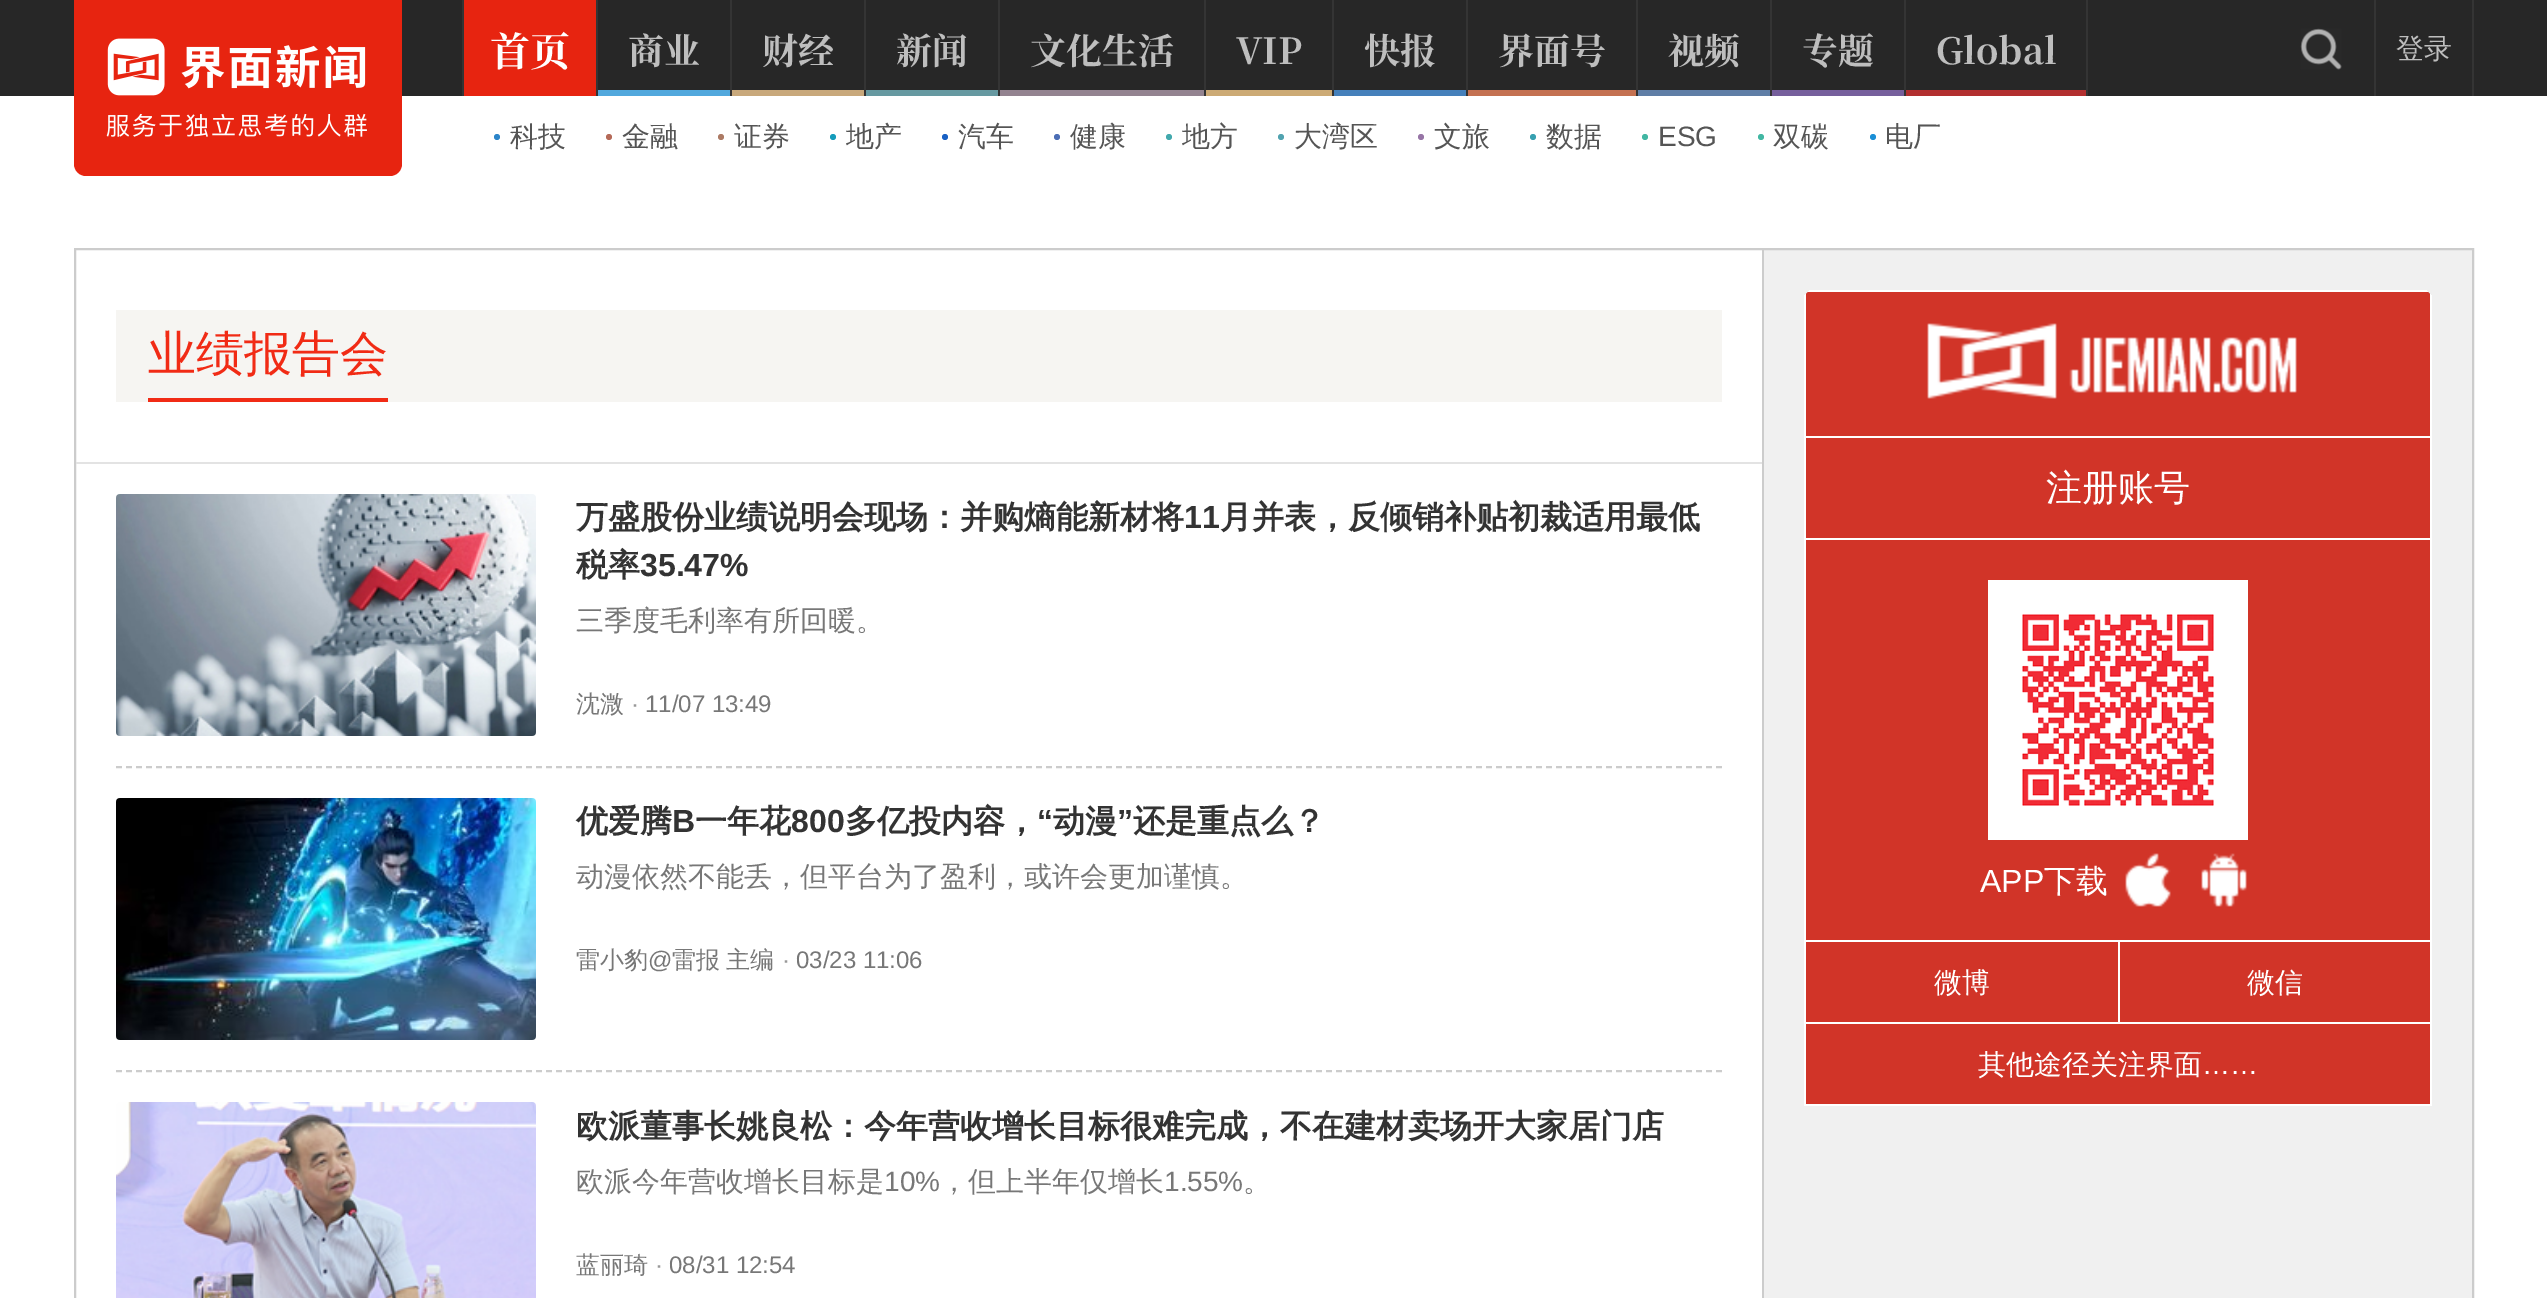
%!PS
<< /PageSize [2547 1298] >> setpagedevice
/rgb { 3 { 255 div 3 1 roll } repeat setrgbcolor } def
/font { [ exch dup neg 0 0 3 -1 roll 0 0 ] selectfont } def
/circle { newpath 0 360 arc closepath } def
/roundrect { 5 dict begin { /r /h /w /y /x } { exch def } forall
  x r add y moveto x w add y 2 copy h add r arct x w add y h add x 1 index r arct
  x y h add x y r arct x y 2 copy exch w add exch r arct closepath end } def
/picture { 5 dict begin { /h /w /y /x /name } { exch def } forall
  gsave x y translate w h scale
  w h 8 [w 0 0 h 0 0] name (r) file false 3 colorimage grestore end } def
0 1298 translate 1 -1 scale
4 setmiterlimit
255 255 255 rgb
0 0 2547 1298 rectfill
39 39 39 rgb
0 0 2547 96 rectfill
231 36 16 rgb
74 0 moveto 402 0 lineto 402 164 lineto 402 170.5 396.5 176 390 176 curveto 86 176 lineto 79.5 176 74 170.5 74 164 curveto closepath fill
(img/1.rgb) 106 38 261 99 picture
[
  [596 0 2 96 52 52 52]
  [462 0 2 96 52 52 52]
  [464 0 132 96 231 36 16]
] { aload pop rgb rectfill } forall
44 133 201 rgb
497 137 3 circle fill
181 106 88 rgb
609 137 3 circle fill
172 122 100 rgb
721 137 3 circle fill
21 156 187 rgb
833 137 3 circle fill
25 97 196 rgb
945 137 3 circle fill
76 110 181 rgb
1057 137 3 circle fill
66 169 173 rgb
1169 137 3 circle fill
81 163 176 rgb
1281 137 3 circle fill
151 117 166 rgb
1421 137 3 circle fill
55 160 176 rgb
1533 137 3 circle fill
66 183 163 rgb
1645 137 3 circle fill
1761 137 3 circle fill
26 143 214 rgb
1873 137 3 circle fill
[
  [730 0 2 96 52 52 52]
  [598 90 132 6 81 168 221]
  [864 0 2 96 52 52 52]
  [732 90 132 6 200 168 123]
  [998 0 2 96 52 52 52]
  [866 90 132 6 102 153 161]
  [1204 0 2 96 52 52 52]
  [1000 90 204 6 147 131 144]
  [1332 0 2 96 52 52 52]
  [1206 90 126 6 204 170 117]
  [1466 0 2 96 52 52 52]
  [1334 90 132 6 69 128 187]
  [1636 0 2 96 52 52 52]
  [1468 90 168 6 196 113 81]
  [1770 0 2 96 52 52 52]
  [1638 90 132 6 95 126 166]
  [1904 0 2 96 52 52 52]
  [1772 90 132 6 118 95 156]
  [2086 0 2 96 52 52 52]
  [1906 90 180 6 178 47 47]
] { aload pop rgb rectfill } forall
(img/2.rgb) 2300 28 42 42 picture
[
  [2472 0 2 96 52 52 52]
  [2374 0 2 96 52 52 52]
  [1764 250 708 1048 240 240 240]
] { aload pop rgb rectfill } forall
204 204 204 rgb
2 setlinewidth
75 249 2398 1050 rectstroke
[
  [1762 250 2 1048 204 204 204]
  [76 462 1686 2 227 227 227]
  [116 310 1606 92 246 245 242]
  [148 398 240 4 241 43 21]
] { aload pop rgb rectfill } forall
204 204 204 rgb
[6 4] 0 setdash
116 767 moveto 1722 767 lineto stroke
(img/3.rgb) 116 494 420 242 picture
116 1071 moveto 1722 1071 lineto stroke
(img/4.rgb) 116 798 420 242 picture
(img/5.rgb) 116 1102 420 196 picture
209 52 40 rgb
1814 290 moveto 2422 290 lineto 2427.5 290 2432 294.5 2432 300 curveto 2432 1106 lineto 1804 1106 lineto 1804 300 lineto 1804 294.5 1808.5 290 1814 290 curveto closepath fill
gsave
1804 290 628 856 10 roundrect clip newpath
255 255 255 rgb
1804 290 628 2 rectfill
grestore
[
  [1804 436 628 2 255 255 255]
  [1804 538 628 2 255 255 255]
  [2118 940 314 2 255 255 255]
  [1804 1022 628 2 255 255 255]
  [2430 1022 2 84 255 255 255]
  [2430 940 2 84 255 255 255]
  [2430 538 2 404 255 255 255]
  [2430 436 2 104 255 255 255]
] { aload pop rgb rectfill } forall
gsave
1804 290 628 856 10 roundrect clip newpath
2430 290 2 148 rectfill
grestore
[
  [2118 940 2 84 255 255 255]
  [1804 940 316 2 255 255 255]
  [1804 1104 628 2 255 255 255]
  [1804 1022 2 84 255 255 255]
  [1804 940 2 84 255 255 255]
  [1804 538 2 404 255 255 255]
  [1804 436 2 104 255 255 255]
] { aload pop rgb rectfill } forall
gsave
1804 290 628 856 10 roundrect clip newpath
1804 290 2 148 rectfill
grestore
(img/6.rgb) 1927 323 370 76 picture
1988 580 260 260 rectfill
(img/7.rgb) 2022 614 192 192 picture
(img/8.rgb) 2125 853 46 54 picture
(img/9.rgb) 2201 853 46 54 picture
/NotoSerifSC-Bold 40 font
490 66 moveto (首页) show
/WenQuanYiZenHei-Medium 28 font
85 85 85 rgb
[
  [(科技) 510 146]
  [(金融) 622 146]
  [(证券) 734 146]
  [(地产) 846 146]
  [(汽车) 958 146]
  [(健康) 1070 146]
  [(地方) 1182 146]
  [(大湾区) 1294 146]
  [(文旅) 1434 146]
  [(数据) 1546 146]
] { aload pop moveto show } forall
/LiberationSans-Regular 28 font
1658 146 moveto (ESG) show
/WenQuanYiZenHei-Medium 28 font
1773 146 moveto (双碳) show
1885 146 moveto (电厂) show
/NotoSerifSC-Bold 36 font
190 190 190 rgb
[
  [(商业) 628 64]
  [(财经) 762 64]
  [(新闻) 896 64]
  [(文化生活) 1030 64]
  [(VIP) 1236 64]
  [(快报) 1364 64]
  [(界面号) 1498 64]
  [(视频) 1668 64]
  [(专题) 1802 64]
  [(Global) 1936 64]
] { aload pop moveto show } forall
/WenQuanYiZenHei-Medium 28 font
2396 58 moveto (登录) show
/WenQuanYiZenHei-Medium 48 font
241 43 21 rgb
148 370 moveto (业绩报告会) show
/WenQuanYiZenHei-Bold 32 font
51 51 51 rgb
576 528 moveto (万盛股份业绩说明会现场：并购熵能新材将) show
/LiberationSans-Bold 32 font
1184 528 moveto (11) show
/WenQuanYiZenHei-Bold 32 font
1220 528 moveto (月并表，反倾销补贴初裁适用最低) show
576 576 moveto (税率) show
/LiberationSans-Bold 32 font
640 576 moveto (35.47%) show
/WenQuanYiZenHei-Medium 28 font
119 119 119 rgb
576 630 moveto (三季度毛利率有所回暖。) show
/WenQuanYiZenHei-Medium 24 font
576 712 moveto (沈溦) show
/LiberationSans-Regular 24 font
153 153 153 rgb
631 712 moveto (·) show
119 119 119 rgb
645 712 moveto (11/07 13:49) show
/WenQuanYiZenHei-Bold 32 font
51 51 51 rgb
576 832 moveto (优爱腾) show
/LiberationSans-Bold 32 font
672 832 moveto (B) show
/WenQuanYiZenHei-Bold 32 font
695 832 moveto (一年花) show
/LiberationSans-Bold 32 font
791 832 moveto (800) show
/WenQuanYiZenHei-Bold 32 font
845 832 moveto (多亿投内容，) show
/LiberationSans-Bold 32 font
1037 832 moveto (“) show
/WenQuanYiZenHei-Bold 32 font
1053 832 moveto (动漫) show
/LiberationSans-Bold 32 font
1117 832 moveto (”) show
/WenQuanYiZenHei-Bold 32 font
1133 832 moveto (还是重点么？) show
/WenQuanYiZenHei-Medium 28 font
119 119 119 rgb
576 886 moveto (动漫依然不能丢，但平台为了盈利，或许会更加谨慎。) show
/WenQuanYiZenHei-Medium 24 font
576 968 moveto (雷小豹) show
/LiberationSans-Regular 24 font
648 968 moveto (@) show
/WenQuanYiZenHei-Medium 24 font
672 968 moveto -1 0 32 (雷报 主编) widthshow
/LiberationSans-Regular 24 font
153 153 153 rgb
782 968 moveto (·) show
119 119 119 rgb
796 968 moveto (03/23 11:06) show
/WenQuanYiZenHei-Bold 32 font
51 51 51 rgb
576 1137 moveto (欧派董事长姚良松：今年营收增长目标很难完成，不在建材卖场开大家居门店) show
/WenQuanYiZenHei-Medium 28 font
119 119 119 rgb
576 1191 moveto (欧派今年营收增长目标是) show
/LiberationSans-Regular 28 font
884 1191 moveto (10%) show
/WenQuanYiZenHei-Medium 28 font
940 1191 moveto (，但上半年仅增长) show
/LiberationSans-Regular 28 font
1164 1191 moveto (1.55%) show
/WenQuanYiZenHei-Medium 28 font
1243 1191 moveto (。) show
/WenQuanYiZenHei-Medium 24 font
576 1273 moveto (蓝丽琦) show
/LiberationSans-Regular 24 font
153 153 153 rgb
655 1273 moveto (·) show
119 119 119 rgb
669 1273 moveto (08/31 12:54) show
/WenQuanYiZenHei-Medium 36 font
255 255 255 rgb
2046 500 moveto (注册账号) show
/LiberationSans-Regular 32 font
1980 892 moveto (APP) show
/WenQuanYiZenHei-Medium 32 font
2044 892 moveto (下载) show
/WenQuanYiZenHei-Medium 28 font
[
  [(微博) 1934 992]
  [(微信) 2247 992]
  [(其他途径关注界面) 1978 1074]
] { aload pop moveto show } forall
/LiberationSans-Regular 28 font
2202 1074 moveto (……) show
showpage
